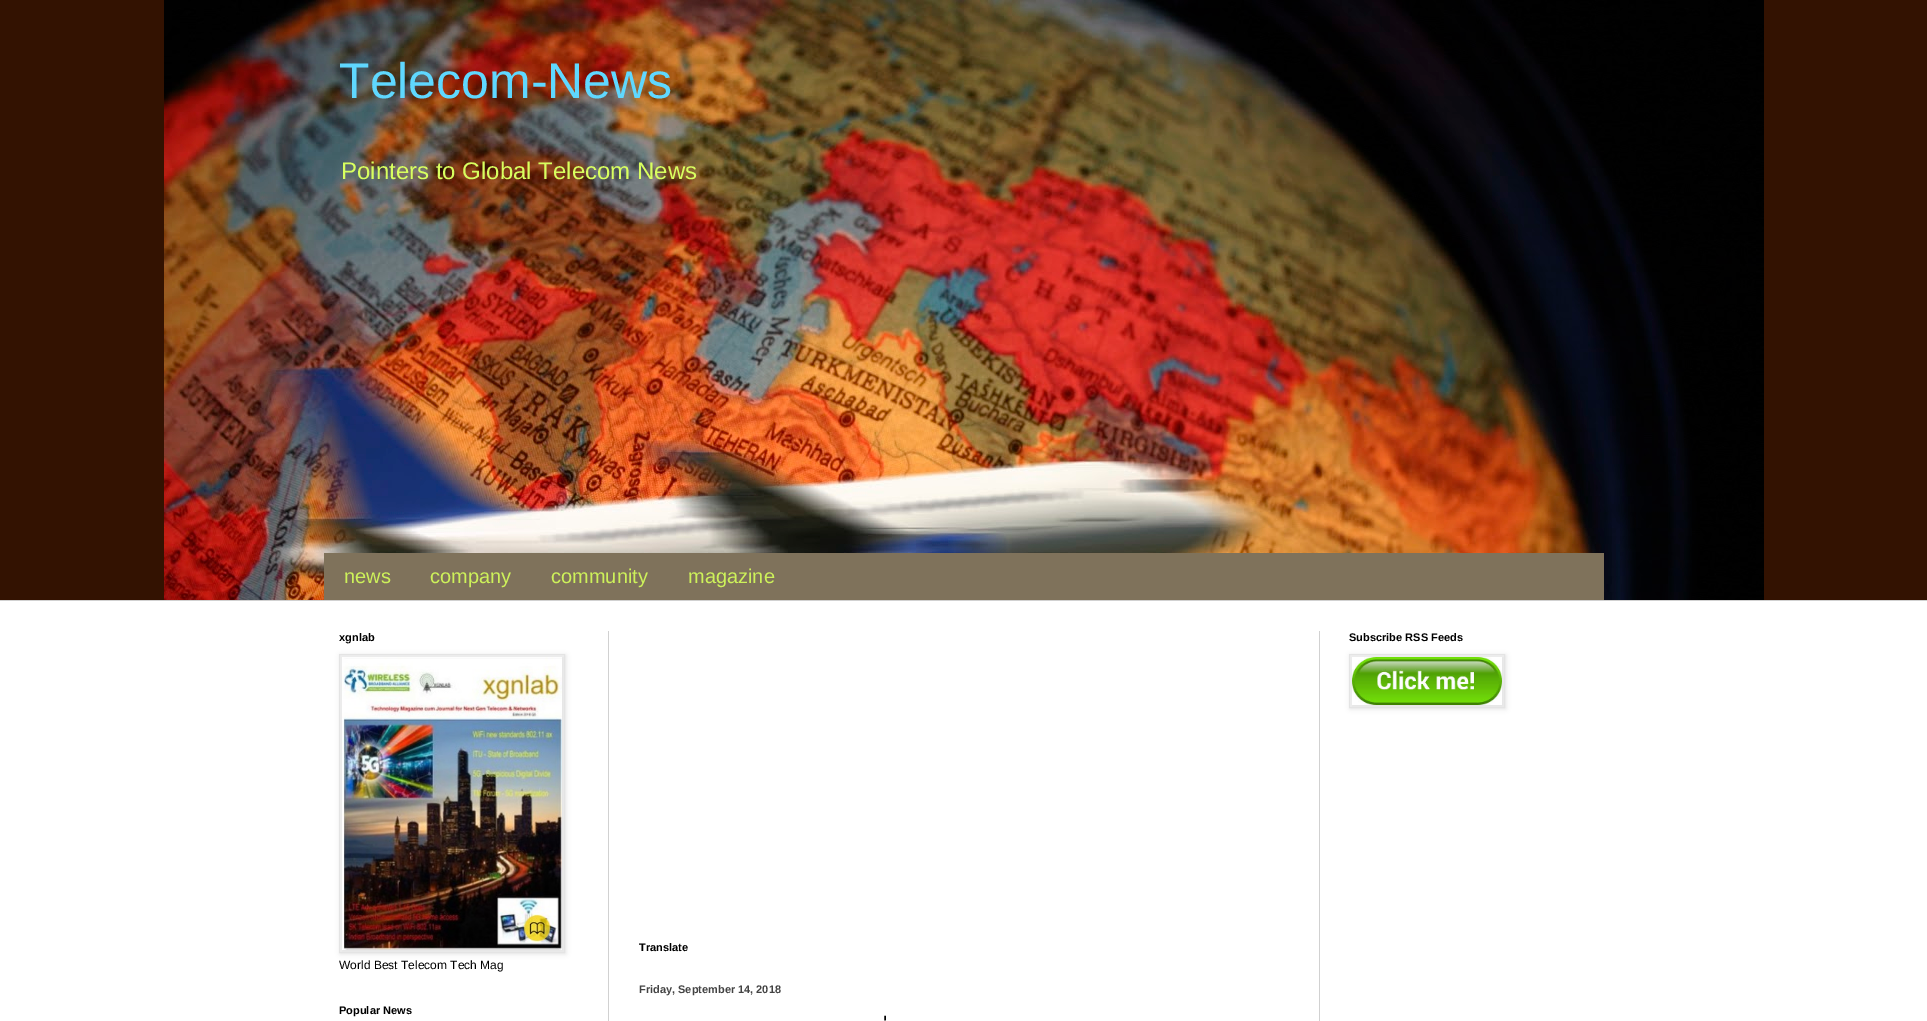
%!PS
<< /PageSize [1927 1021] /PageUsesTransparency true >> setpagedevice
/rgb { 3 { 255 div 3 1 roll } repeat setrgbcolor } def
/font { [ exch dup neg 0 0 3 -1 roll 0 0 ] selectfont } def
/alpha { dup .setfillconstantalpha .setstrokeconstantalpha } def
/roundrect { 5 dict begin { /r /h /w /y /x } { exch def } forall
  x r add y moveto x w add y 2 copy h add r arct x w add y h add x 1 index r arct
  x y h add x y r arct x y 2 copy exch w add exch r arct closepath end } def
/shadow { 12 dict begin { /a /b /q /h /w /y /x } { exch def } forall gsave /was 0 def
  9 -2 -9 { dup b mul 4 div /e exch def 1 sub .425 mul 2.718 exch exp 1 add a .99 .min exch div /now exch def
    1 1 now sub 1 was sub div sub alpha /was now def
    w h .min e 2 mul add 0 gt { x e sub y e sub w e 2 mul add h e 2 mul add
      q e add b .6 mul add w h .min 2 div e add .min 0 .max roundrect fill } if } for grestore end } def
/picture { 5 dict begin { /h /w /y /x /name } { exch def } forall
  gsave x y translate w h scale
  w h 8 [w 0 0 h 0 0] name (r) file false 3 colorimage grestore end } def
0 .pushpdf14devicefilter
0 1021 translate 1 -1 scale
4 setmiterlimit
51 18 1 rgb
0 0 1927 1021 rectfill
(img/1.rgb) 164 0 1600 600 picture
[
  [324 553 1280 47 127 114 91]
  [0 601 1927 420 255 255 255]
  [0 600 1927 1 209 209 209]
  [608 631 1 390 209 209 209]
  [1319 631 1 390 209 209 209]
] { aload pop rgb rectfill } forall
0 0 0 rgb
340 655 226 299 0 2.5 0.1 shadow
228 228 228 rgb
339.5 654.5 225 298 rectstroke
(img/2.rgb) 342 657 220 293 picture
0 0 0 rgb
1350 655 156 54 0 2.5 0.1 shadow
228 228 228 rgb
1349.5 654.5 155 53 rectstroke
(img/3.rgb) 1352 657 150 48 picture
/LiberationSans-Regular 50 font
95 216 255 rgb
339 98 moveto (Telecom-News) show
/LiberationSans-Regular 24 font
216 255 95 rgb
341 179 moveto (Pointers to Global Telecom News) show
/LiberationSans-Regular 20 font
205 241 90 rgb
[
  [(news) 344 583]
  [(company) 430 583]
  [(community) 551 583]
  [(magazine) 688 583]
] { aload pop moveto show } forall
/LiberationSans-Bold 11 font
0 0 0 rgb
339 641 moveto (xgnlab) show
/LiberationSans-Regular 12 font
339 969 moveto (World Best Telecom Tech Mag) show
/LiberationSans-Bold 11 font
[
  [(Popular News) 339 1014]
  [(Subscribe RSS Feeds) 1349 641]
  [(Translate) 639 951]
] { aload pop moveto show } forall
67 67 67 rgb
639 993 moveto (Friday, September 14, 2018) show
/LiberationSans-Regular 22 font
0 0 0 rgb
883 1031 moveto (') show
.poppdf14devicefilter showpage
